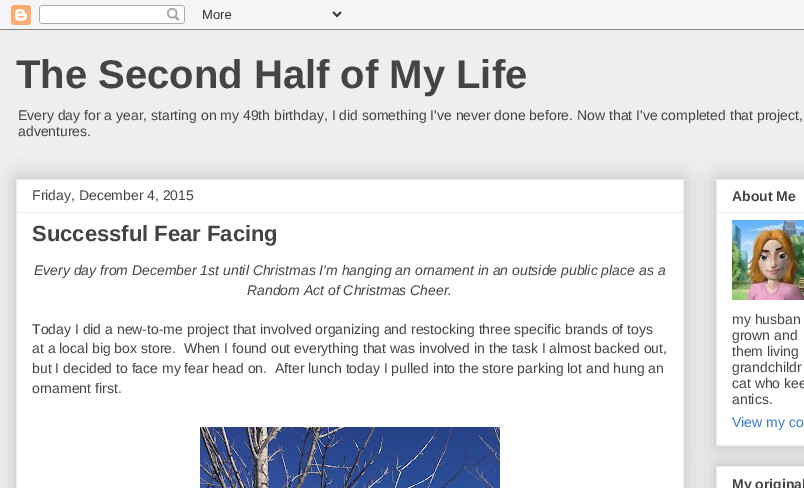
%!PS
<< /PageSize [804 488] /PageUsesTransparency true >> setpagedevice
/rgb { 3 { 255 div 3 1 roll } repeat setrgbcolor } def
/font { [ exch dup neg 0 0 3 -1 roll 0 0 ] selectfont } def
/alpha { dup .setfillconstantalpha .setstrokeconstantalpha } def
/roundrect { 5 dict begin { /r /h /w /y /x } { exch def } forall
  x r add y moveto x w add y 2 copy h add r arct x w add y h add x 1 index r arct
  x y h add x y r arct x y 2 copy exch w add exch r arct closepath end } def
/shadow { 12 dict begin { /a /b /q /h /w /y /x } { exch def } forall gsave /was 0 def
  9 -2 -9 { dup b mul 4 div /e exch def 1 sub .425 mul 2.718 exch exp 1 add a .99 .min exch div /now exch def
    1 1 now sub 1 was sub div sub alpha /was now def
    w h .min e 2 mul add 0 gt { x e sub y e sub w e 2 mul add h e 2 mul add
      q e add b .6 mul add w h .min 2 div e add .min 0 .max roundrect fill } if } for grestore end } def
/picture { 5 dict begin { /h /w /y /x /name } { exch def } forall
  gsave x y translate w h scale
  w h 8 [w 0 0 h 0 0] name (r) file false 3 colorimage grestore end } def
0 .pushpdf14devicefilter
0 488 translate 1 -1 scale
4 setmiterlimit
238 238 238 rgb
0 0 804 488 rectfill
(img/1.rgb) 0 0 804 30 picture
0 0 0 rgb
16 179 668 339 0 10 0.2 shadow
255 255 255 rgb
16.5 179.5 moveto 683.5 179.5 lineto 683.5 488.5 lineto 16.5 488.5 lineto closepath gsave fill grestore
238 238 238 rgb
stroke
17 212 666 1 rectfill
(img/2.rgb) 200 427 300 61 picture
0 0 0 rgb
716 179 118 267 0 10 0.2 shadow
255 255 255 rgb
716.5 179.5 moveto 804.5 179.5 lineto 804.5 445.5 lineto 716.5 445.5 lineto closepath gsave fill grestore
238 238 238 rgb
stroke
717 212 87 1 rectfill
(img/3.rgb) 732 220 72 80 picture
0 0 0 rgb
716 466 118 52 0 10 0.2 shadow
255 255 255 rgb
716.5 466.5 moveto 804.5 466.5 lineto 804.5 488.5 lineto 716.5 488.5 lineto closepath gsave fill grestore
238 238 238 rgb
stroke
/LiberationSans-Bold 40 font
68 68 68 rgb
16 88 moveto (The Second Half of My Life) show
/LiberationSans-Regular 14 font
[
  [(Every day for a year, starting on my 49th birthday, I did something I've never done before. Now that I've completed that project,) 18 120]
  [(adventures.) 18 136]
  [(Friday, December 4, 2015) 32 200]
] { aload pop moveto show } forall
/LiberationSans-Bold 22 font
32 241 moveto (Successful Fear Facing) show
/LiberationSans-Italic 14 font
34 275 moveto (Every day from December 1st until Christmas I'm hanging an ornament in an outside public place as a) show
247 295 moveto (Random Act of Christmas Cheer.) show
/LiberationSans-Regular 14 font
[
  [(Today I did a new-to-me project that involved organizing and restocking three specific brands of toys) 32 334]
  [(at a local big box store.  When I found out everything that was involved in the task I almost backed out,) 32 353]
  [(but I decided to face my fear head on.  After lunch today I pulled into the store parking lot and hung an) 32 373]
  [(ornament first.) 32 393]
] { aload pop moveto show } forall
/LiberationSans-Bold 14 font
732 201 moveto (About Me) show
/LiberationSans-Regular 14 font
[
  [(my husban) 732 324]
  [(grown and) 732 340]
  [(them living) 732 356]
  [(grandchildr) 732 372]
  [(cat who kee) 732 388]
  [(antics.) 732 404]
] { aload pop moveto show } forall
55 120 205 rgb
732 427 moveto (View my co) show
/LiberationSans-Bold 14 font
68 68 68 rgb
732 489 moveto (My original) show
.poppdf14devicefilter showpage
